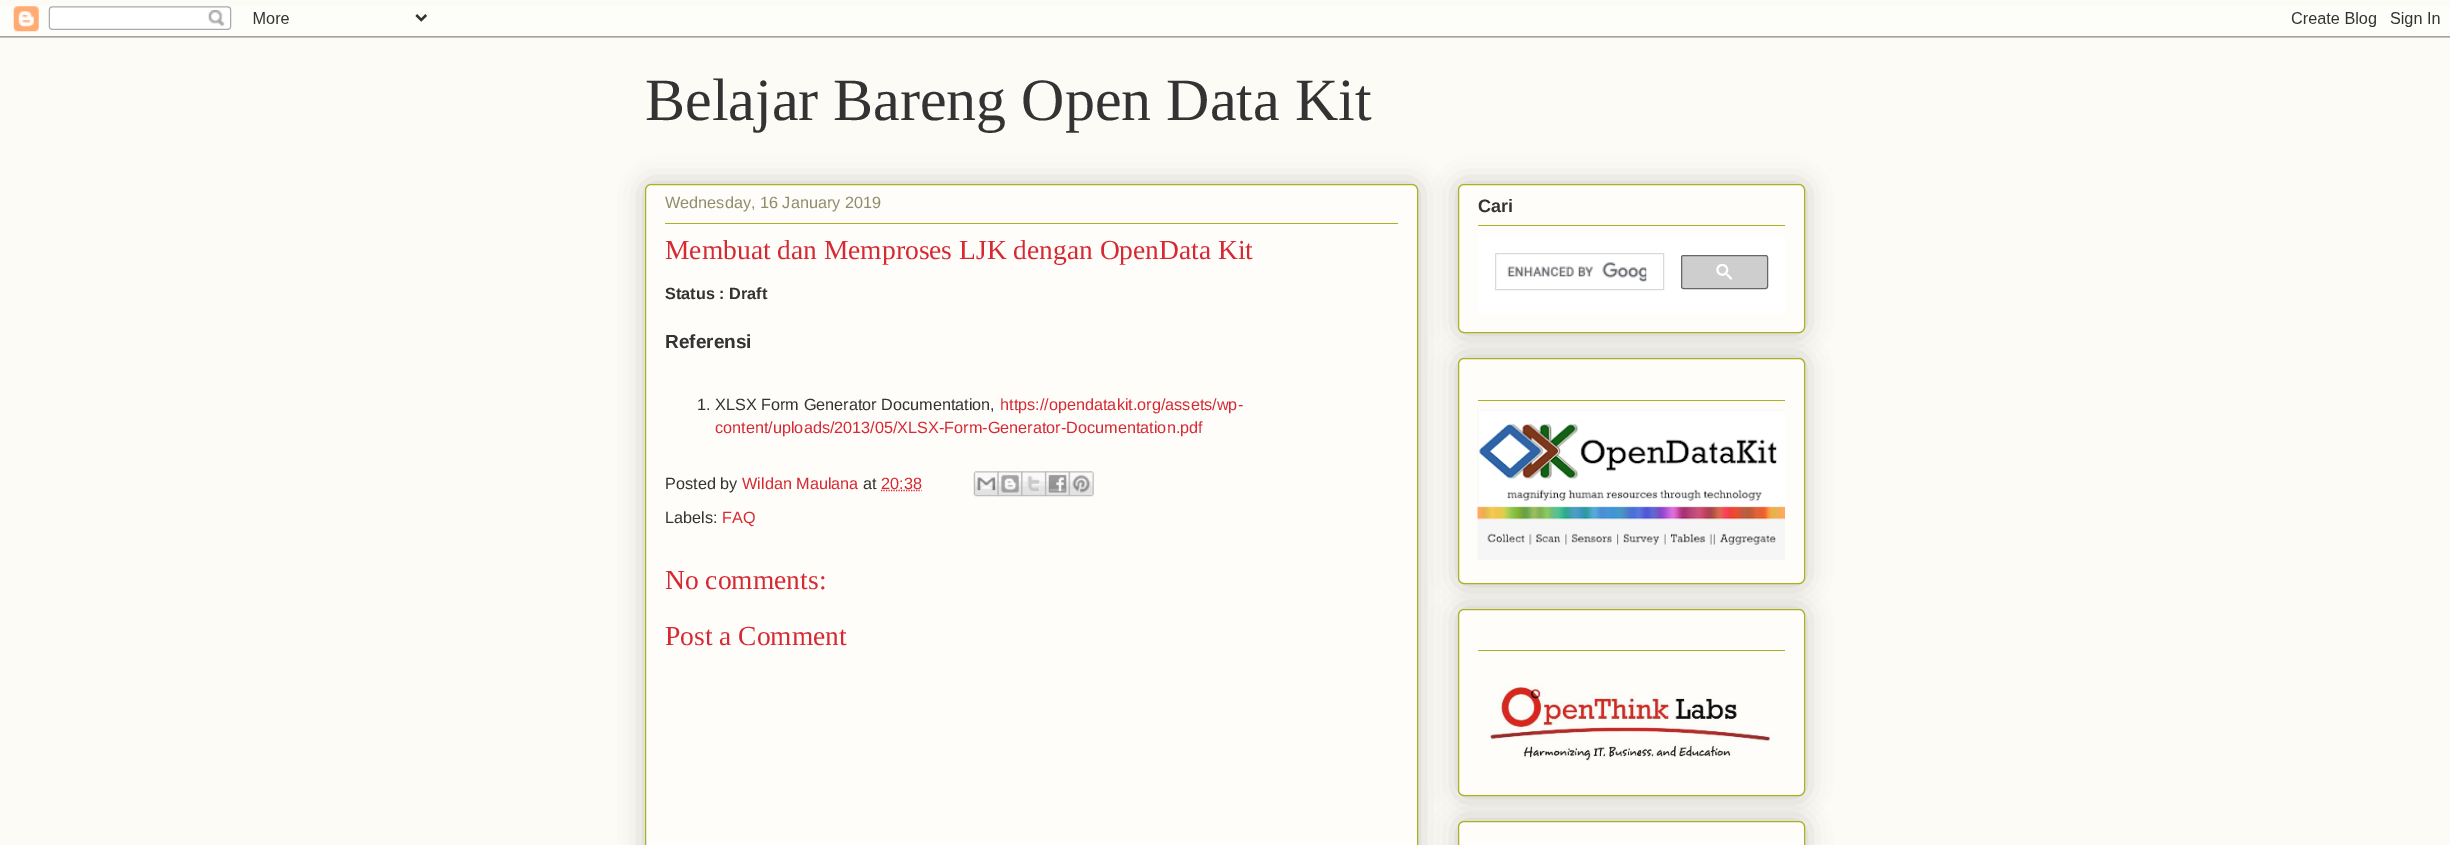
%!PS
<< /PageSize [2450 845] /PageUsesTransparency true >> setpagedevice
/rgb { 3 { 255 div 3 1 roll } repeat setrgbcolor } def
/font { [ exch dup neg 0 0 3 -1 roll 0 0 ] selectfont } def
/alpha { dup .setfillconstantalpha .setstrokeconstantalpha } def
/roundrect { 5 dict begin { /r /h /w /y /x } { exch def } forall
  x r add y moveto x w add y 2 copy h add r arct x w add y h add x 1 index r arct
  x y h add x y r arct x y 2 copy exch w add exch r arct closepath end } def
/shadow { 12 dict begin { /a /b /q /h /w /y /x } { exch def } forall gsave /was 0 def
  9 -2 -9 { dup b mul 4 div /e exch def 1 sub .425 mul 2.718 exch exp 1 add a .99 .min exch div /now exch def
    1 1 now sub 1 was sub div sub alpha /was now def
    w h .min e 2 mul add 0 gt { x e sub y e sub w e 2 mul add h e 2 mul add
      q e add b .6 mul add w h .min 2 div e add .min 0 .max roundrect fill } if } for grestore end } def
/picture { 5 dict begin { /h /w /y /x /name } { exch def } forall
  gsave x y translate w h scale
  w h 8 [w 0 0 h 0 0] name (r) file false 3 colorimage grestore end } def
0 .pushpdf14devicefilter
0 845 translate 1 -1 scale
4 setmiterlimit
252 251 245 rgb
0 0 2450 845 rectfill
(img/1.rgb) 0 6 2450 32 picture
0 0 0 rgb
645 184 773 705 6 12.5 0.2 shadow
254 253 250 rgb
645.5 184.5 772 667 5.5 roundrect gsave fill grestore
170 177 35 rgb
stroke
665 223 733 1 rectfill
213 42 51 rgb
1.2 setlinewidth
[1.25 1.25] 0 setdash
881 490.5 moveto 921.5 490.5 lineto stroke
(img/2.rgb) 973 471 26 26 picture
(img/3.rgb) 997 471 26 26 picture
(img/4.rgb) 1021 471 26 26 picture
(img/5.rgb) 1045 471 25 26 picture
(img/6.rgb) 1068 471 26 26 picture
0 0 0 rgb
1458 184 347 149 6 12.5 0.2 shadow
254 253 250 rgb
1458.5 184.5 346 148 5.5 roundrect gsave fill grestore
170 177 35 rgb
1 setlinewidth
[] 0 setdash
stroke
1478 225 307 1 rectfill
255 255 255 rgb
1478 235 307 78 rectfill
217 217 217 rgb
1495.5 253.5 168 36 rectstroke
(img/7.rgb) 1507 262 140 20 picture
206 206 206 rgb
1681.5 255.5 86 33 2 roundrect gsave fill grestore
102 102 102 rgb
stroke
(img/8.rgb) 1716 264 17 16 picture
0 0 0 rgb
1458 358 347 226 6 12.5 0.2 shadow
254 253 250 rgb
1458.5 358.5 346 225 5.5 roundrect gsave fill grestore
170 177 35 rgb
stroke
1478 400 307 1 rectfill
(img/9.rgb) 1477 410 308 150 picture
0 0 0 rgb
1458 609 347 187 6 12.5 0.2 shadow
254 253 250 rgb
1458.5 609.5 346 186 5.5 roundrect gsave fill grestore
170 177 35 rgb
stroke
1478 650 307 1 rectfill
(img/10.rgb) 1490 686 283 75 picture
0 0 0 rgb
1458 821 347 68 6 12.5 0.2 shadow
254 253 250 rgb
1458.5 821.5 346 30 5.5 roundrect gsave fill grestore
170 177 35 rgb
stroke
/LiberationSerif-Regular 60 font
51 51 51 rgb
645 120 moveto (Belajar Bareng Open Data Kit) show
/LiberationSans-Regular 16.25 font
144 141 106 rgb
665 208 moveto (Wednesday, 16 January 2019) show
/LiberationSerif-Regular 27.5 font
213 42 51 rgb
665 259 moveto (Membuat dan Memproses LJK dengan OpenData Kit) show
/LiberationSans-Bold 16.25 font
51 51 51 rgb
665 299 moveto (Status : Draft) show
/LiberationSans-Bold 19 font
665 348 moveto (Referensi) show
/LiberationSans-Regular 16.25 font
697 410 moveto (1. XLSX Form Generator Documentation,) show
213 42 51 rgb
1000 410 moveto (https://opendatakit.org/assets/wp-) show
715 433 moveto (content/uploads/2013/05/XLSX-Form-Generator-Documentation.pdf) show
51 51 51 rgb
665 489 moveto (Posted by) show
213 42 51 rgb
742 489 moveto (Wildan Maulana) show
51 51 51 rgb
863 489 moveto (at) show
213 42 51 rgb
881 489 moveto (20:38) show
51 51 51 rgb
665 523 moveto (Labels:) show
213 42 51 rgb
722 523 moveto (FAQ) show
/LiberationSerif-Regular 27.5 font
665 589 moveto (No comments:) show
665 645 moveto (Post a Comment) show
/LiberationSans-Bold 18 font
51 51 51 rgb
1478 212 moveto (Cari) show
.poppdf14devicefilter showpage
